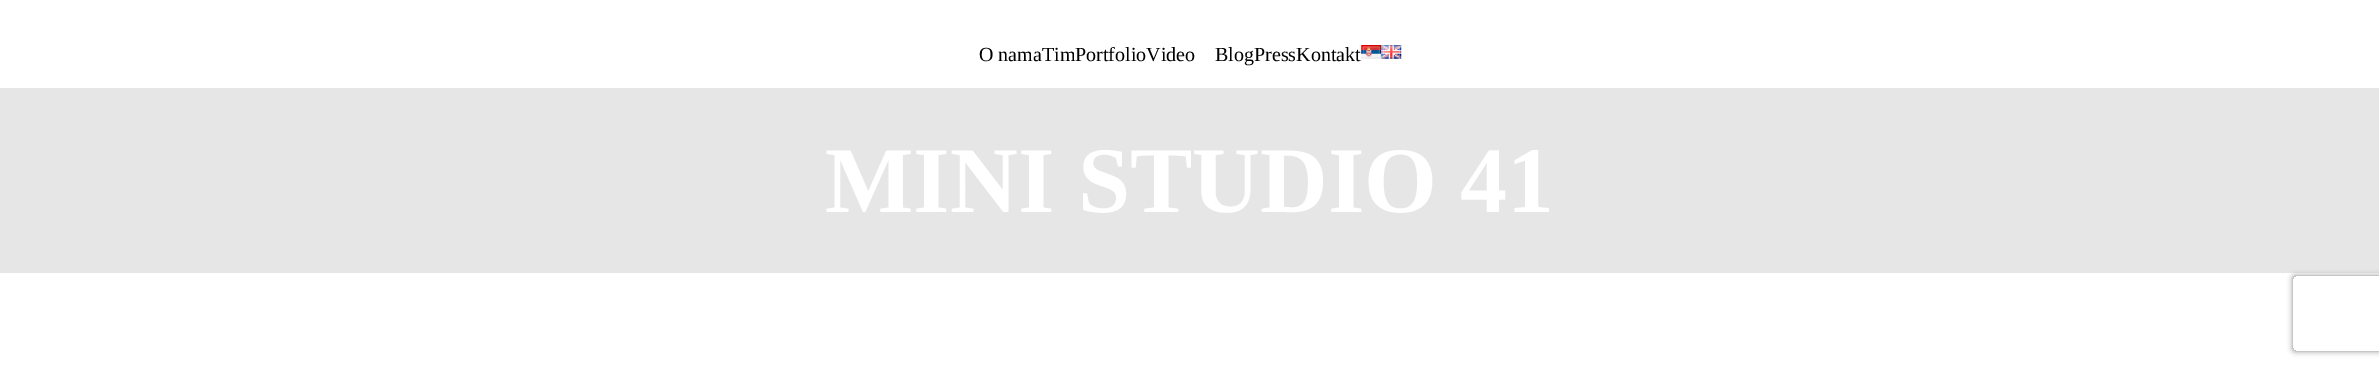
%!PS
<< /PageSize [2379 368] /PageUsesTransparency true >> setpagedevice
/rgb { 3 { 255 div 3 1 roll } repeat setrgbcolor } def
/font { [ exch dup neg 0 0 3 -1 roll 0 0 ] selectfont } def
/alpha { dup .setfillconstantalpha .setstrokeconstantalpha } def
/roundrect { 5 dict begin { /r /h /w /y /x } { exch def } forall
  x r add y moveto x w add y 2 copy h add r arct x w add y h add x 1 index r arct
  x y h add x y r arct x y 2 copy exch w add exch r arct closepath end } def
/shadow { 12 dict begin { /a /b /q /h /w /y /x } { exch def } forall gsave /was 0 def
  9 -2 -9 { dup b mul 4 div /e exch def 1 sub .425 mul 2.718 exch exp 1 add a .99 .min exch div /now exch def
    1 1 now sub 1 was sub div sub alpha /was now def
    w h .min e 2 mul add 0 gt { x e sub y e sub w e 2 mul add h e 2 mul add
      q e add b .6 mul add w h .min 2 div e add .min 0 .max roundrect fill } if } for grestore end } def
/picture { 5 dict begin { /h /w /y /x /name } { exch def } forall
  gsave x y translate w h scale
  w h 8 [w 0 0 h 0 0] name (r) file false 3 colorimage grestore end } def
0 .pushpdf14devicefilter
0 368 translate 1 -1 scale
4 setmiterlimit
255 255 255 rgb
0 0 2379 368 rectfill
(img/1.rgb) 1361 45 21 14 picture
(img/2.rgb) 1381 45 21 14 picture
230 230 230 rgb
0 88 2379 185 rectfill
gsave
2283 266 moveto 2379 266 lineto 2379 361 lineto 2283 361 lineto closepath 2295.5 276 moveto 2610.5 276 lineto 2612 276 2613 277 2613 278.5 curveto 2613 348.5 lineto 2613 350 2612 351 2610.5 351 curveto 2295.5 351 lineto 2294 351 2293 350 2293 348.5 curveto 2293 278.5 lineto 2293 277 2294 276 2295.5 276 curveto closepath eoclip newpath
128 128 128 rgb
2293 276 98 75 2.5 3 1 shadow
grestore
/LiberationSerif-Regular 20 font
0 0 0 rgb
979 61 moveto (O namaTimPortfolioVideo) show
1215 61 moveto (BlogPressKontakt) show
/LiberationSerif-Bold 93.75 font
255 255 255 rgb
825 212 moveto (MINI STUDIO 41) show
.poppdf14devicefilter showpage
